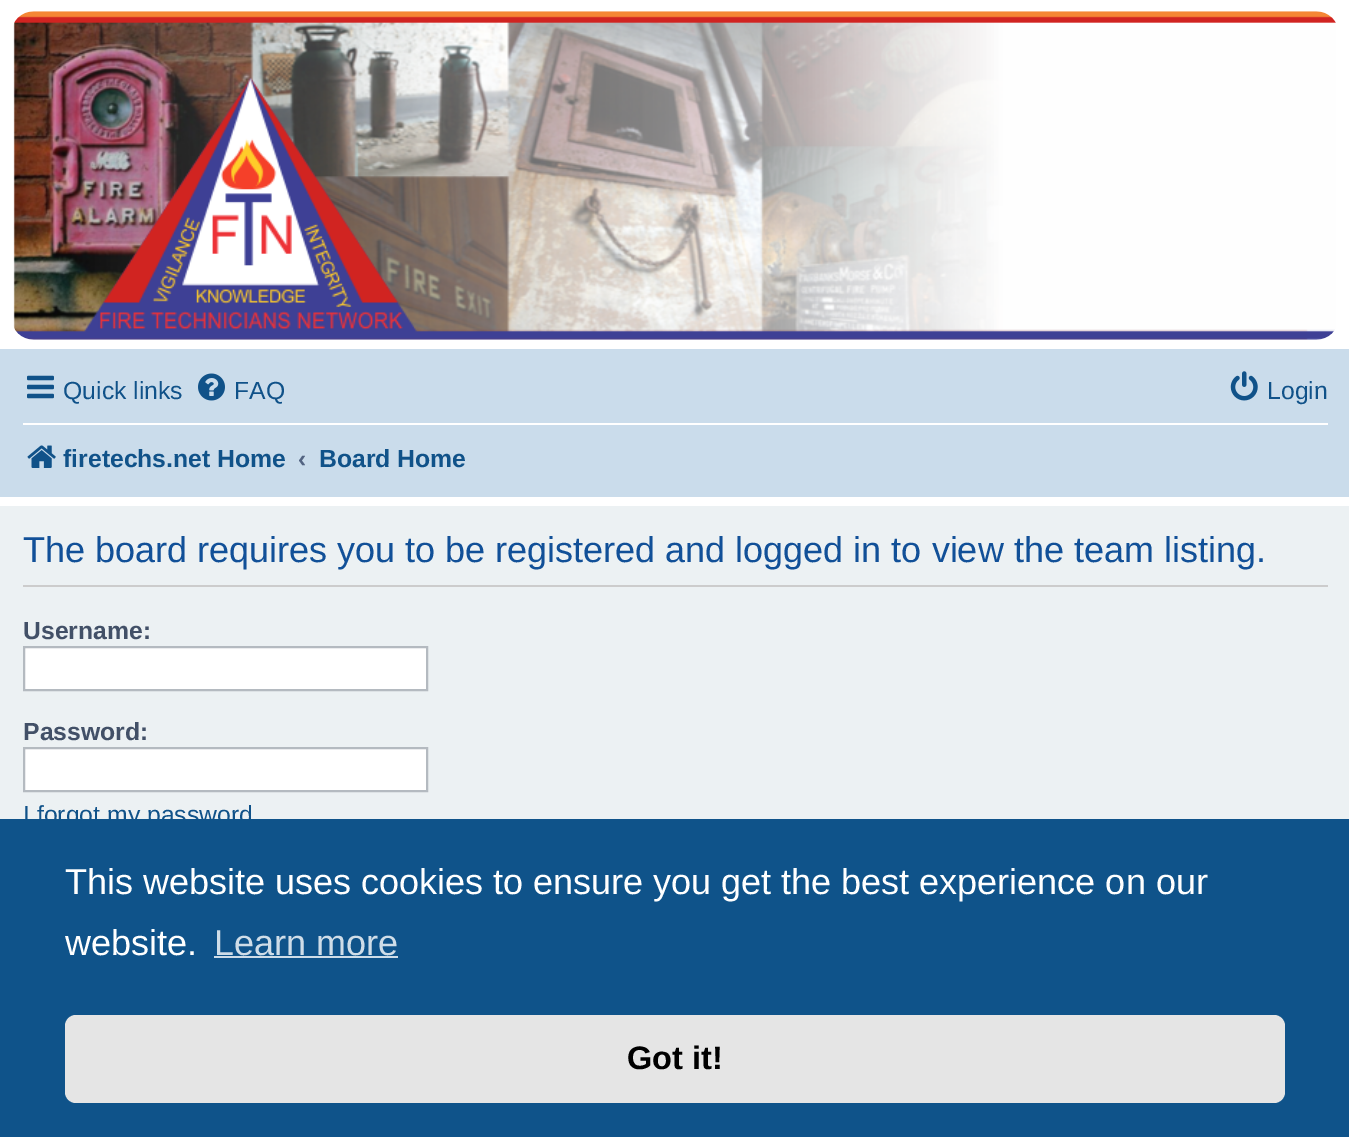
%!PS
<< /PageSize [1349 1137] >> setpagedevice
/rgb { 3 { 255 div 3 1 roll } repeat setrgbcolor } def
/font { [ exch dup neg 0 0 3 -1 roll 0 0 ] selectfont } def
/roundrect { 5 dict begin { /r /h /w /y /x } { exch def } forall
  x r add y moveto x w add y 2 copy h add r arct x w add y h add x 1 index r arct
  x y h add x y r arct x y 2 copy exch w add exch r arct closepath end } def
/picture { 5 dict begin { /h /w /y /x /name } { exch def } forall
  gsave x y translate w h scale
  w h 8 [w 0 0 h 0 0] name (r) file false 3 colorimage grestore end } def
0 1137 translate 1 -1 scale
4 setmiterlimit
255 255 255 rgb
0 0 1349 1137 rectfill
(img/1.rgb) 13 11 1323 329 picture
202 220 235 rgb
0 349 1349 148 rectfill
(img/2.rgb) 27 375 27 24 picture
(img/3.rgb) 198 373 27 28 picture
(img/4.rgb) 1230 371 28 30 picture
255 255 255 rgb
23 423 1305 2 rectfill
(img/5.rgb) 27 445 29 23 picture
236 241 243 rgb
0 506 1349 313 rectfill
204 204 204 rgb
23 585 1305 2 rectfill
255 255 255 rgb
24 647 moveto 427 647 lineto 427 690 lineto 24 690 lineto closepath gsave fill grestore
180 186 192 rgb
2 setlinewidth
stroke
255 255 255 rgb
24 748 moveto 427 748 lineto 427 791 lineto 24 791 lineto closepath gsave fill grestore
180 186 192 rgb
stroke
/LiberationSans-Regular 24.75 font
16 82 137 rgb
[
  [(Quick links) 63 399]
  [(FAQ) 234 399]
  [(Login) 1267 399]
] { aload pop moveto show } forall
/LiberationSans-Bold 24.75 font
63 467 moveto (firetechs.net Home) show
83 100 130 rgb
298 467 moveto (‹) show
16 82 137 rgb
319 467 moveto (Board Home) show
/LiberationSans-Regular 36 font
17 80 152 rgb
23 562 moveto (The board requires you to be registered and logged in to view the team listing.) show
/LiberationSans-Bold 24.75 font
66 80 103 rgb
23 639 moveto (Username:) show
23 740 moveto (Password:) show
/LiberationSans-Regular 24.75 font
16 82 137 rgb
23 823 moveto (I forgot my password) show
15 83 138 rgb
0 819 1349 318 rectfill
/LiberationSans-Regular 36 font
255 255 255 rgb
65 894 moveto (This website uses cookies to ensure you get the best experience on our) show
65 955 moveto (website.) show
207 221 232 rgb
214 955 moveto (Learn more) show
214 956 184 2 rectfill
229 229 229 rgb
65 1015 1220 88 11 roundrect fill
/LiberationSans-Bold 32.5 font
0 0 0 rgb
627 1069 moveto (Got it!) show
showpage
